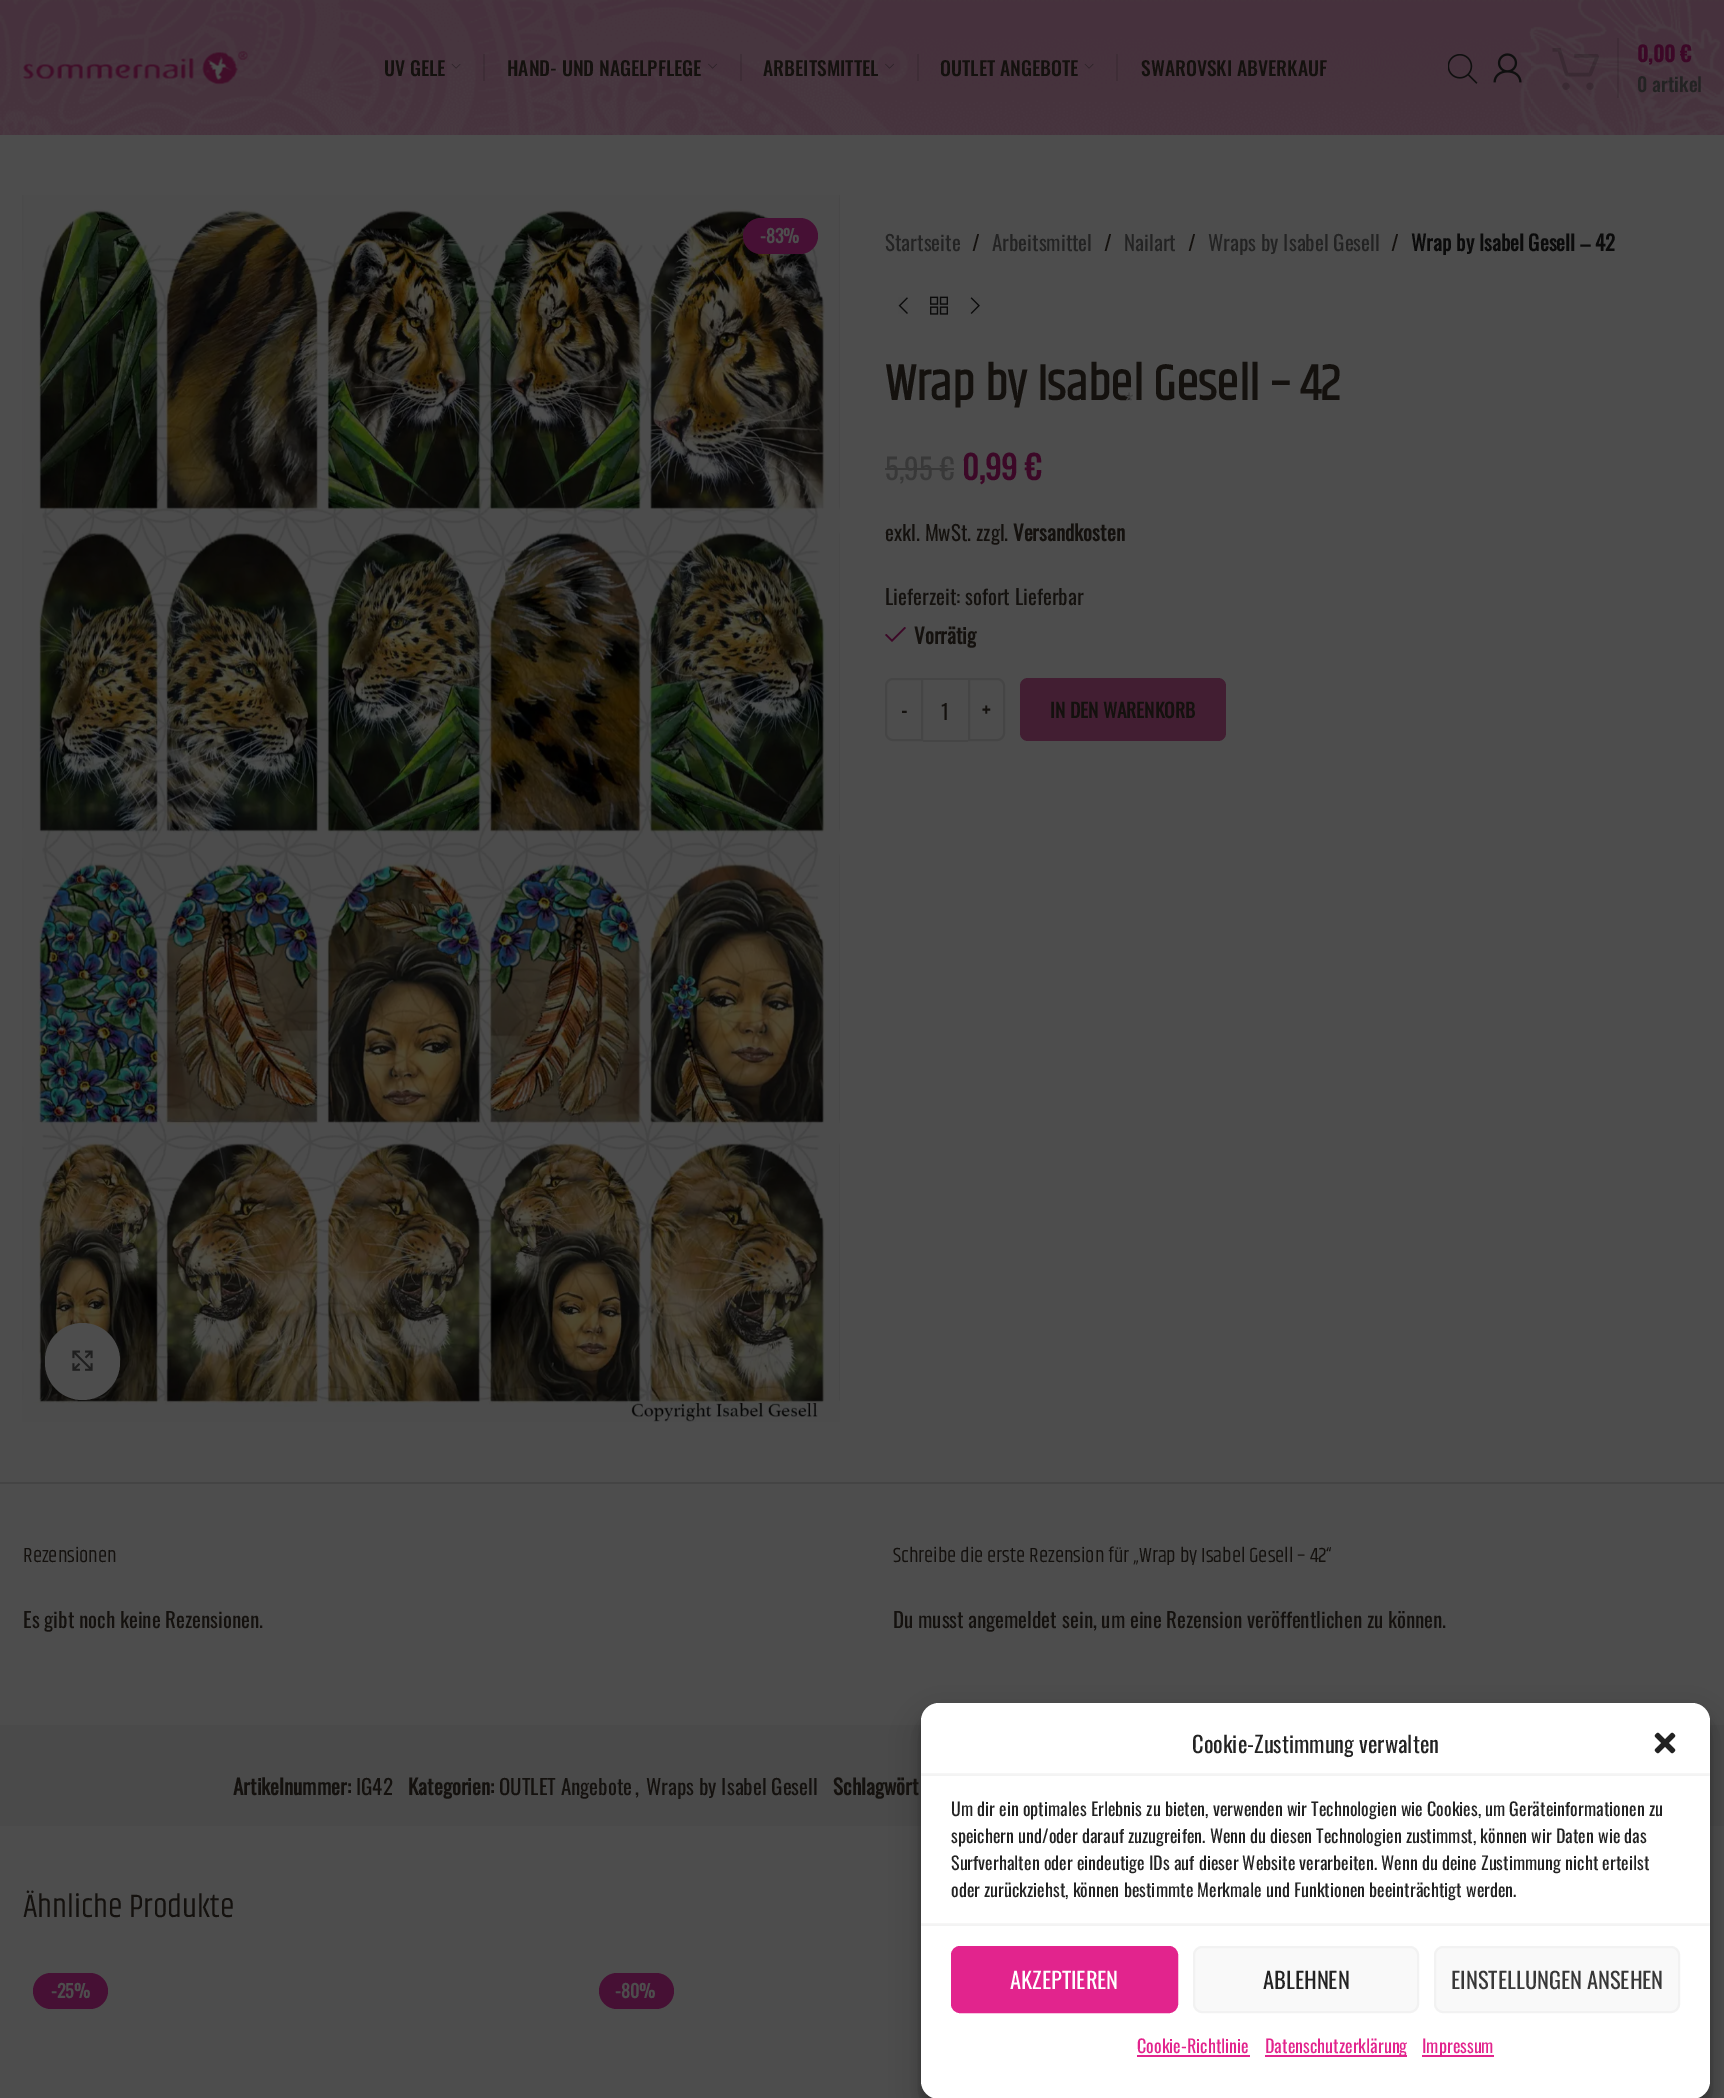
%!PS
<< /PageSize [1724 2098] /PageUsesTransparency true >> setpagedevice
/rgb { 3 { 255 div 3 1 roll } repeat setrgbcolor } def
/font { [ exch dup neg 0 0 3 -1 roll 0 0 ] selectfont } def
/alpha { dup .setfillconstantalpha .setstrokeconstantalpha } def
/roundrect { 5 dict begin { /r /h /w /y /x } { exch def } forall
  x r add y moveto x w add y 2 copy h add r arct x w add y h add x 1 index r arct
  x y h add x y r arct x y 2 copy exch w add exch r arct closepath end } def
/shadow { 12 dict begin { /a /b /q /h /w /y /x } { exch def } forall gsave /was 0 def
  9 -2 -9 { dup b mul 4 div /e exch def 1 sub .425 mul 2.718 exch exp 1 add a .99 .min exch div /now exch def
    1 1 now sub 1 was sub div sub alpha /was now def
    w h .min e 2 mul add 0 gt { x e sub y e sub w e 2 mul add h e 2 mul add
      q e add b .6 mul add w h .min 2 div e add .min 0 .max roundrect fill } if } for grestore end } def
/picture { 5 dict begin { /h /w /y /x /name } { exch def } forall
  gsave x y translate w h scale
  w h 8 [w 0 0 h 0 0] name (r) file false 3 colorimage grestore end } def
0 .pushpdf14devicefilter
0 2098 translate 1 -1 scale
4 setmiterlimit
77 77 77 rgb
0 0 1724 2098 rectfill
(img/1.rgb) 0 0 1724 135 picture
(img/2.rgb) 23 51 225 34 picture
(img/3.rgb) 451 63 10 6 picture
0.11 alpha
0 0 0 rgb
483 54 2 27 rectfill
1 alpha
(img/4.rgb) 708 63 9 6 picture
0.11 alpha
740 54 2 27 rectfill
1 alpha
(img/5.rgb) 885 63 9 6 picture
0.11 alpha
917 54 2 27 rectfill
1 alpha
(img/6.rgb) 1084 63 10 6 picture
0.11 alpha
1116 54 2 27 rectfill
1 alpha
(img/7.rgb) 1448 54 30 30 picture
(img/8.rgb) 1552 48 47 42 picture
0.1 alpha
1617 38 2 60 rectfill
1 alpha
(img/9.rgb) 1493 53 29 30 picture
(img/10.rgb) 22 195 818 1227 picture
70 16 52 rgb
743 218 75 36 18 roundrect fill
77 77 77 rgb
45 1323 75 77 37.5 roundrect fill
(img/11.rgb) 72 1350 21 21 picture
(img/12.rgb) 898 297 10 17 picture
(img/13.rgb) 930 296 18 19 picture
(img/14.rgb) 970 297 10 17 picture
56 56 56 rgb
885 468 56 2 rectfill
941 468 13 2 rectfill
60 8 39 rgb
906 628 moveto 904.5 627 lineto 892 639.5 lineto 886.5 634 lineto 885 635 lineto 892 642 lineto closepath fill
69 69 69 rgb
2 setlinewidth
893 679 moveto 922 679 lineto 922 740 lineto 893 740 lineto 889 740 886 737 886 733 curveto 886 686 lineto 886 682 889 679 893 679 curveto closepath stroke
923 678 45 2 rectfill
923 740 45 2 rectfill
969 679 moveto 997 679 lineto 1001 679 1004 682 1004 686 curveto 1004 733 lineto 1004 737 1001 740 997 740 curveto 969 740 lineto closepath stroke
66 30 50 rgb
1020 678 206 63 8 roundrect fill
68 68 68 rgb
0 1482 1724 2 rectfill
74 74 74 rgb
0 1725 1724 101 rectfill
70 16 52 rgb
33 1973 75 36 18 roundrect fill
599 1973 75 36 18 roundrect fill
0 0 0 rgb
921 1712 789 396 18 4.5 0.23 shadow
921 1718 789 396 18 15 0.19 shadow
255 255 255 rgb
921 1703 789 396 18 roundrect fill
(img/15.rgb) 1654 1732 22 22 picture
gsave
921 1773 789 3 rectclip
0 0 0 rgb
921 1773 789 5 0 2 0.05 shadow
grestore
gsave
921 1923 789 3 rectclip
0 0 0 rgb
921 1923 789 5 0 2 0.05 shadow
grestore
226 36 141 rgb
952 1947 225 65 8 roundrect gsave fill grestore
stroke
249 249 249 rgb
1194 1947 224 65 8 roundrect gsave fill grestore
242 242 242 rgb
stroke
249 249 249 rgb
1435 1947 244 65 8 roundrect gsave fill grestore
242 242 242 rgb
stroke
[
  [1137 2055 113 2 226 36 141]
  [1265 2055 142 2 226 36 141]
  [1422 2055 72 2 226 36 141]
] { aload pop rgb rectfill } forall
/Oswald-Medium 19.5 font
20 17 14 rgb
[
  [(UV GELE) 384 76]
  [(HAND- UND NAGELPFLEGE) 507 76]
  [(ARBEITSMITTEL) 763 76]
  [(OUTLET ANGEBOTE) 940 76]
  [(SWAROVSKI ABVERKAUF) 1141 76]
] { aload pop moveto show } forall
/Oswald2-Bold 21 font
60 8 39 rgb
1637 62 moveto (0,00 €) show
/Oswald-Medium 19.5 font
35 35 35 rgb
1637 92 moveto (0 artikel) show
/Oswald-Bold 18 font
77 77 77 rgb
760 243 moveto (-83%) show
/Oswald-Regular 21 font
35 35 35 rgb
885 251 moveto (Startseite) show
20 17 14 rgb
972 251 moveto (/) show
35 35 35 rgb
992 251 moveto (Arbeitsmittel) show
20 17 14 rgb
1104 251 moveto (/) show
35 35 35 rgb
1124 251 moveto (Nailart) show
20 17 14 rgb
1188 251 moveto (/) show
35 35 35 rgb
1208 251 moveto (Wraps by Isabel Gesell) show
20 17 14 rgb
1391 251 moveto (/) show
/Oswald-Bold 21 font
11 11 11 rgb
1411 251 moveto (Wrap by Isabel Gesell – 42) show
/Khand-Bold 51 font
20 17 14 rgb
885 400 moveto (Wrap by Isabel Gesell – 42) show
/Oswald-Regular 24 font
64 64 64 rgb
1124 412 moveto (*) show
/Oswald-Regular 29 font
56 56 56 rgb
885 480 moveto (5,95) show
940 480 moveto (€) show
/Oswald-Bold 32.5 font
60 8 39 rgb
962 480 moveto (0,99 €) show
/Oswald-Regular 21 font
20 17 14 rgb
885 541 moveto (exkl. MwSt. zzgl.) show
/Oswald-Bold 21 font
1013 541 moveto (Versandkosten) show
/Oswald-Regular 21 font
885 605 moveto (Lieferzeit: sofort Lieferbar) show
/Oswald-Bold 21 font
914 644 moveto (Vorrätig) show
/Oswald-Bold 19.5 font
901 718 moveto (-) show
/Oswald-Regular 21 font
941 720 moveto (1) show
/Oswald-Bold 19.5 font
982 718 moveto (+) show
1050 718 moveto (IN DEN WARENKORB) show
/Khand-Regular 21 font
23 1562 moveto (Rezensionen) show
/Oswald-Regular 21 font
23 1628 moveto (Es gibt noch keine Rezensionen.) show
/Khand-Regular 21 font
893 1562 moveto (Schreibe die erste Rezension für „Wrap by Isabel Gesell – 42“) show
/Oswald-Regular 21 font
[
  [(Du musst) 893 1628]
  [(angemeldet) 968 1628]
  [(sein, um eine Rezension veröffentlichen zu können.) 1062 1628]
] { aload pop moveto show } forall
/Oswald-Bold 21 font
233 1795 moveto (Artikelnummer:) show
/Oswald-Regular 21 font
356 1795 moveto (IG42) show
/Oswald-Bold 21 font
408 1795 moveto (Kategorien:) show
/Oswald-Regular 21 font
[
  [(OUTLET Angebote) 499 1795]
  [(,) 635 1795]
  [(Wraps by Isabel Gesell) 646 1795]
] { aload pop moveto show } forall
/Oswald-Bold 21 font
833 1795 moveto (Schlagwört) show
/Khand-Regular 33 font
23 1917 moveto (Ähnliche Produkte) show
/Oswald-Bold 18 font
77 77 77 rgb
51 1998 moveto (-25%) show
615 1998 moveto (-80%) show
/Oswald-Regular 22.5 font
35 35 35 rgb
1192 1753 moveto (Cookie-Zustimmung verwalten) show
/Oswald-Regular 18 font
[
  [(Um dir ein optimales Erlebnis zu bieten, verwenden wir Technologien wie Cookies, um Geräteinformationen zu) 951 1816]
  [(speichern und/oder darauf zuzugreifen. Wenn du diesen Technologien zustimmst, können wir Daten wie das) 951 1843]
  [(Surfverhalten oder eindeutige IDs auf dieser Website verarbeiten. Wenn du deine Zustimmung nicht erteilst) 951 1870]
  [(oder zurückziehst, können bestimmte Merkmale und Funktionen beeinträchtigt werden.) 951 1897]
] { aload pop moveto show } forall
/Oswald-Regular 22.5 font
255 255 255 rgb
1010 1989 moveto (AKZEPTIEREN) show
35 35 35 rgb
1263 1989 moveto (ABLEHNEN) show
56 56 56 rgb
1451 1989 moveto (EINSTELLUNGEN ANSEHEN) show
/Oswald-Regular 18 font
226 36 141 rgb
[
  [(Cookie-Richtlinie) 1137 2053]
  [(Datenschutzerklärung) 1265 2053]
  [(Impressum) 1422 2053]
] { aload pop moveto show } forall
.poppdf14devicefilter showpage
